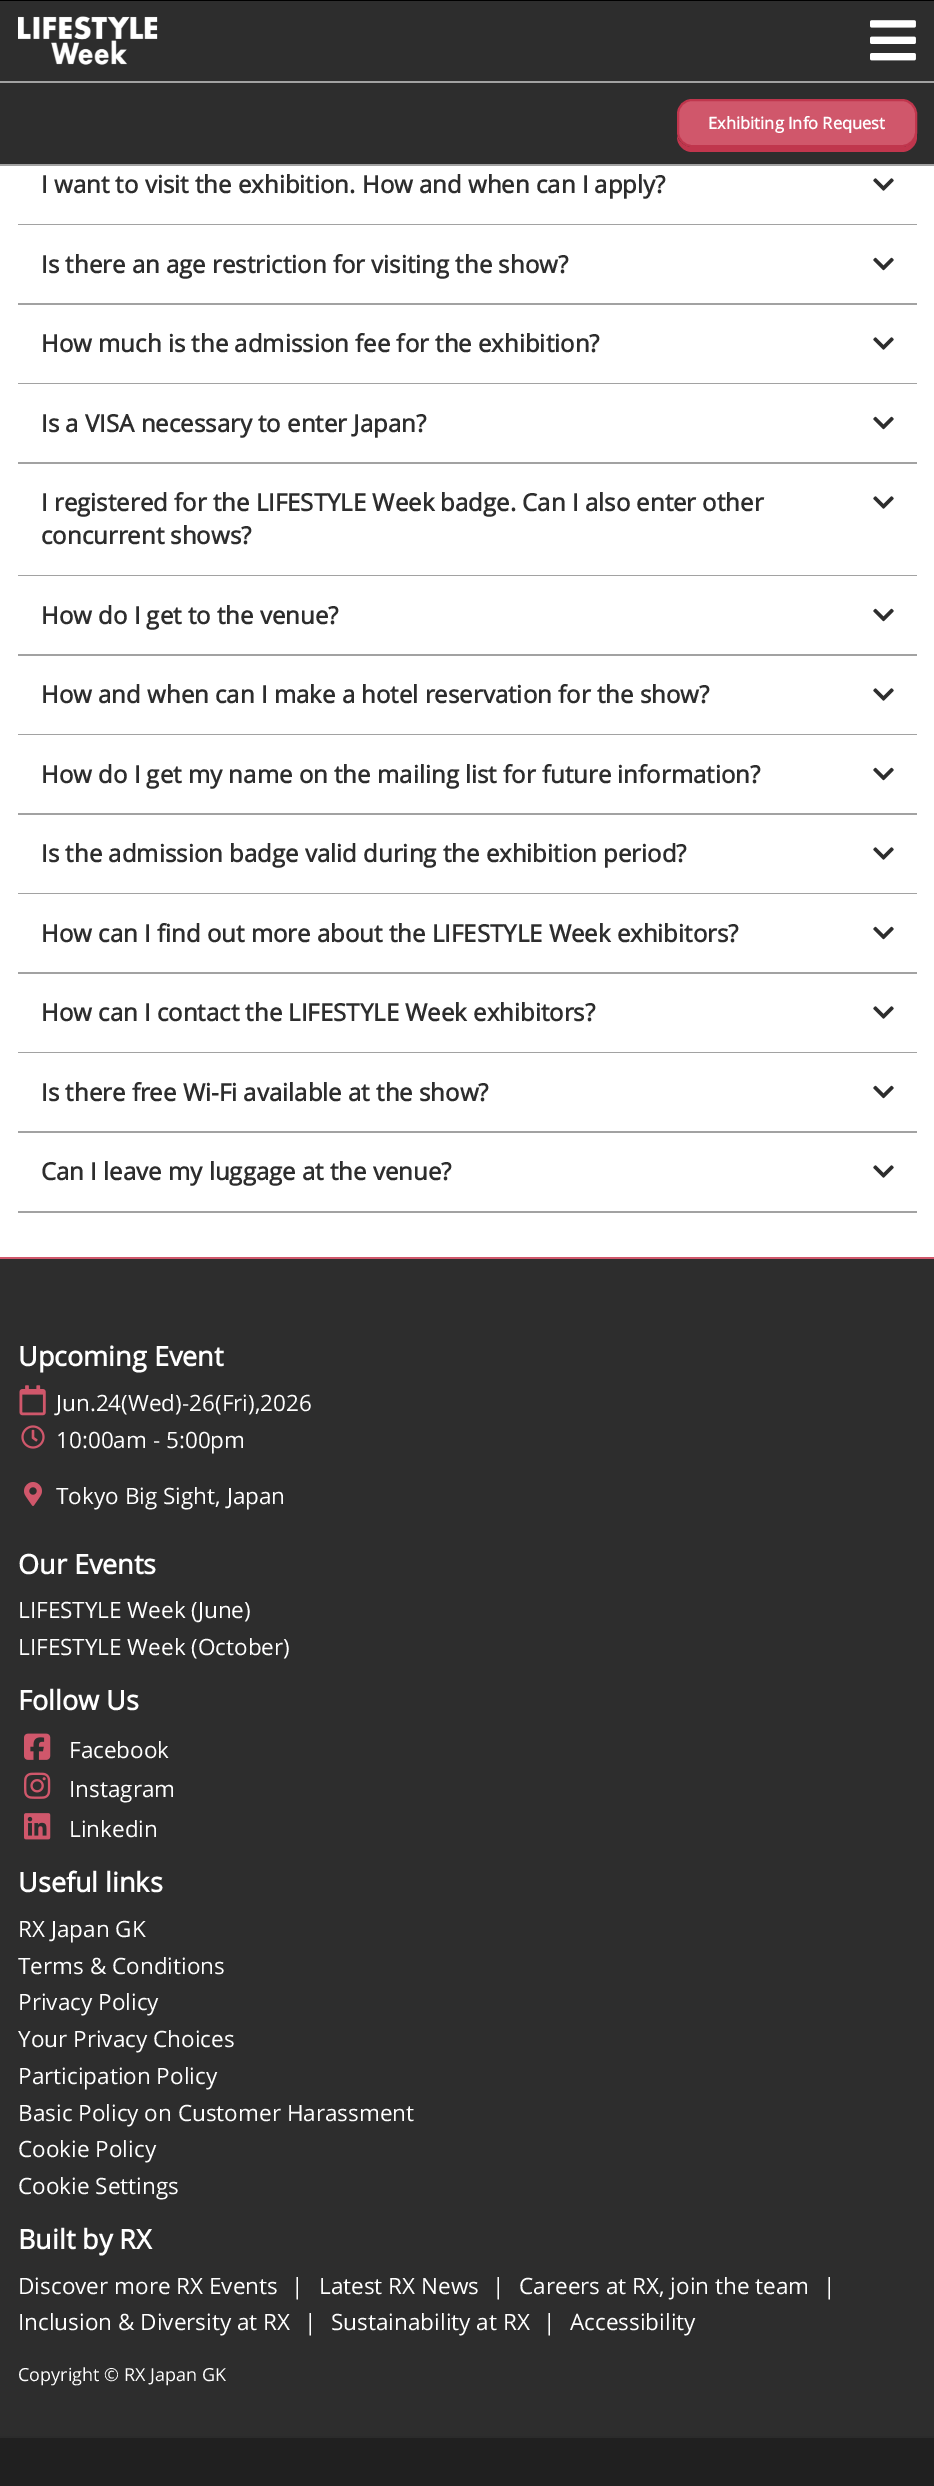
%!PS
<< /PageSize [934 2486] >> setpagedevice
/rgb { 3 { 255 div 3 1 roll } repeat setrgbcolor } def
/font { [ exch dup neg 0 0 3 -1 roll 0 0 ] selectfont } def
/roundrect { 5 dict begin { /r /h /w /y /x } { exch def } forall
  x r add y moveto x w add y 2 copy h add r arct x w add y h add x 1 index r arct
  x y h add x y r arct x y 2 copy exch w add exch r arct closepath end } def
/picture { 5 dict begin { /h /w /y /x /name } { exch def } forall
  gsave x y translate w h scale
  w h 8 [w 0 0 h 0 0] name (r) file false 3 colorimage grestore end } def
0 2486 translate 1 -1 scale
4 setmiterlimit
255 255 255 rgb
0 0 934 2486 rectfill
[
  [0 0 934 1 0 0 0]
  [0 1 934 163 45 45 45]
  [0 81 934 2 162 162 162]
] { aload pop rgb rectfill } forall
(img/1.rgb) 18 16 140 49 picture
(img/2.rgb) 870 20 46 41 picture
0 164 934 2 rectfill
192 54 77 rgb
677 136 moveto 677 137 lineto 677 145 684 152 692 152 curveto 902 152 lineto 910 152 917 145 917 137 curveto 917 119 lineto 916 115 lineto 916 132 lineto 916 140 910 147 902 147 curveto 692 147 lineto 685 147 679 142 677 136 curveto closepath fill
208 87 107 rgb
678 100 238 46 14 roundrect gsave fill grestore
192 54 77 rgb
2 setlinewidth
stroke
162 162 162 rgb
18 224 899 1 rectfill
(img/3.rgb) 873 178 21 13 picture
18 303 899 2 rectfill
(img/4.rgb) 873 257 21 14 picture
18 383 899 1 rectfill
(img/3.rgb) 873 337 21 13 picture
18 462 899 2 rectfill
(img/4.rgb) 873 416 21 14 picture
18 575 899 1 rectfill
(img/3.rgb) 873 496 21 13 picture
18 654 899 2 rectfill
(img/4.rgb) 873 608 21 14 picture
18 734 899 1 rectfill
(img/3.rgb) 873 688 21 13 picture
18 813 899 2 rectfill
(img/4.rgb) 873 767 21 14 picture
18 893 899 1 rectfill
(img/3.rgb) 873 847 21 13 picture
18 972 899 2 rectfill
(img/4.rgb) 873 926 21 14 picture
18 1052 899 1 rectfill
(img/3.rgb) 873 1006 21 13 picture
18 1131 899 2 rectfill
(img/4.rgb) 873 1085 21 14 picture
18 1211 899 2 rectfill
(img/3.rgb) 873 1165 21 13 picture
45 45 45 rgb
0 1259 934 1177 rectfill
208 87 107 rgb
0 1257 934 2 rectfill
(img/5.rgb) 19 1385 27 31 picture
(img/6.rgb) 21 1425 24 24 picture
(img/7.rgb) 24 1482 18 24 picture
(img/8.rgb) 24 1733 27 27 picture
(img/9.rgb) 24 1772 27 27 picture
(img/10.rgb) 24 1813 27 27 picture
32 32 32 rgb
0 2438 934 48 rectfill
43 43 43 rgb
0 2436 934 2 rectfill
/OpenSans-Bold 16.5 font
255 255 255 rgb
708 129 moveto (Exhibiting Info Request) show
/OpenSans-Bold 24 font
45 45 45 rgb
[
  [(I want to visit the exhibition. How and when can I apply?) 41 193]
  [(Is there an age restriction for visiting the show?) 41 273]
  [(How much is the admission fee for the exhibition?) 41 352]
  [(Is a VISA necessary to enter Japan?) 41 432]
  [(I registered for the LIFESTYLE Week badge. Can I also enter other) 41 511]
  [(concurrent shows?) 41 544]
  [(How do I get to the venue?) 41 624]
  [(How and when can I make a hotel reservation for the show?) 41 703]
  [(How do I get my name on the mailing list for future information?) 41 783]
  [(Is the admission badge valid during the exhibition period?) 41 862]
  [(How can I find out more about the LIFESTYLE Week exhibitors?) 41 942]
  [(How can I contact the LIFESTYLE Week exhibitors?) 41 1021]
  [(Is there free Wi-Fi available at the show?) 41 1101]
  [(Can I leave my luggage at the venue?) 41 1180]
] { aload pop moveto show } forall
/OpenSans-Bold 27 font
255 255 255 rgb
18 1366 moveto (Upcoming Event) show
/OpenSans-Regular 22.5 font
[
  [(Jun.24\(Wed\)-26\(Fri\),2026) 56 1411]
  [(10:00am - 5:00pm) 56 1448]
  [(Tokyo Big Sight, Japan) 56 1504]
] { aload pop moveto show } forall
/OpenSans-Bold 27 font
18 1574 moveto (Our Events) show
/OpenSans-Regular 22.5 font
18 1618 moveto (LIFESTYLE Week \(June\)) show
18 1655 moveto (LIFESTYLE Week \(October\)) show
/OpenSans-Bold 27 font
18 1710 moveto (Follow Us) show
/OpenSans-Regular 22.5 font
[
  [(Facebook) 69 1758]
  [(Instagram) 69 1797]
  [(Linkedin) 69 1837]
] { aload pop moveto show } forall
/OpenSans-Bold 27 font
18 1892 moveto (Useful links) show
/OpenSans-Regular 22.5 font
[
  [(RX Japan GK) 18 1937]
  [(Terms & Conditions) 18 1974]
  [(Privacy Policy) 18 2010]
  [(Your Privacy Choices) 18 2047]
  [(Participation Policy) 18 2084]
  [(Basic Policy on Customer Harassment) 18 2121]
  [(Cookie Policy) 18 2157]
  [(Cookie Settings) 18 2194]
] { aload pop moveto show } forall
/OpenSans-Bold 27 font
18 2249 moveto (Built by RX) show
/OpenSans-Regular 22.5 font
[
  [(Discover more RX Events) 18 2294]
  [(|) 291 2294]
  [(Latest RX News) 319 2294]
  [(|) 492 2294]
  [(Careers at RX, join the team) 519 2294]
  [(|) 823 2294]
  [(Inclusion & Diversity at RX) 18 2330]
  [(|) 304 2330]
  [(Sustainability at RX) 331 2330]
  [(|) 543 2330]
  [(Accessibility) 570 2330]
] { aload pop moveto show } forall
/OpenSans-Regular 18 font
18 2381 moveto (Copyright © RX Japan GK) show
showpage
